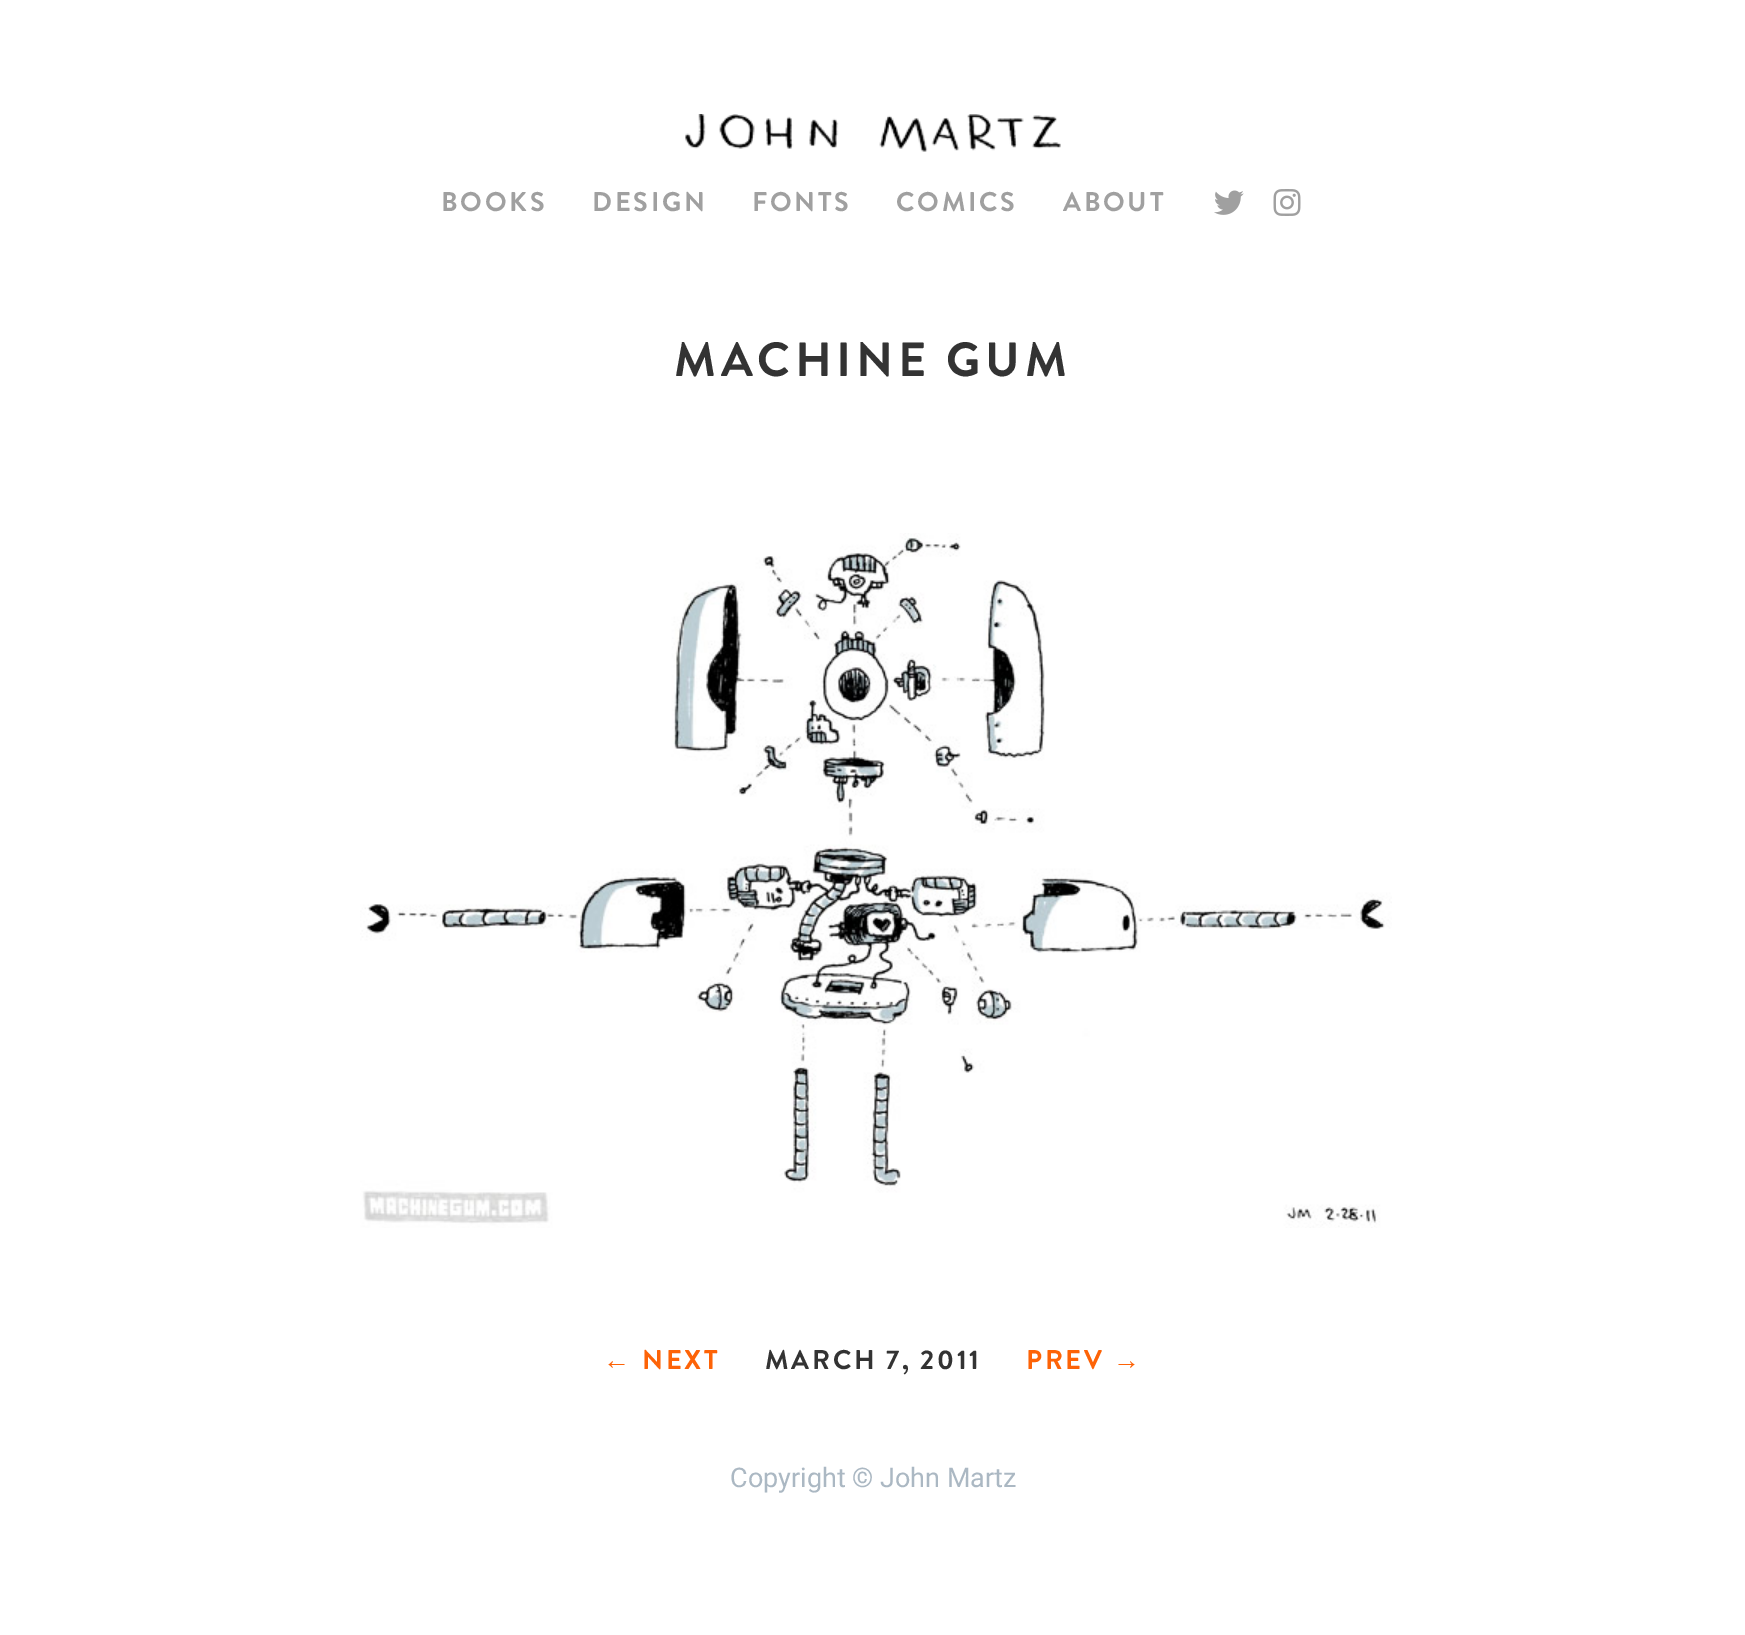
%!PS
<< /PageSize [1745 1635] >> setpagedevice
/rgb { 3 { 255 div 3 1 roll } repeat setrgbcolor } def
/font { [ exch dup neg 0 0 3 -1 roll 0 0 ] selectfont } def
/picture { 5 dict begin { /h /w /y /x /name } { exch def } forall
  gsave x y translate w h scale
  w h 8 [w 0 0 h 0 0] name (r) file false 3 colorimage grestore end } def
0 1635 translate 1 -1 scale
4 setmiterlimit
255 255 255 rgb
0 0 1745 1635 rectfill
(img/1.rgb) 685 114 376 38 picture
(img/2.rgb) 1214 190 30 25 picture
(img/3.rgb) 1273 189 28 27 picture
(img/4.rgb) 360 533 1032 695 picture
/BrandonGrotesque-Bold 27 font
160 160 160 rgb
441 211 moveto 2.75 0 (BOOKS) ashow
592 211 moveto 2.75 0 (DESIGN) ashow
752 211 moveto 2.75 0 (FONTS) ashow
896 211 moveto 2.75 0 (COMICS) ashow
1063 211 moveto 2.75 0 (ABOUT) ashow
/BrandonGrotesque-Bold 48 font
51 51 51 rgb
674 376 moveto 4.75 0 (MACHINE GUM) ashow
/LiberationSans-Bold 27 font
253 99 7 rgb
603 1369 moveto 2.75 0 (←) ashow
/BrandonGrotesque-Bold 27 font
642 1369 moveto 2.75 0 (NEXT) ashow
51 51 51 rgb
765 1369 moveto 2.75 0 (MARCH 7, 2011) ashow
253 99 7 rgb
1026 1369 moveto 2.75 0 (PREV) ashow
/LiberationSans-Bold 27 font
1113 1369 moveto 2.75 0 (→) ashow
/Roboto-Regular 27 font
171 184 195 rgb
730 1487 moveto (Copyright © John Martz) show
showpage
